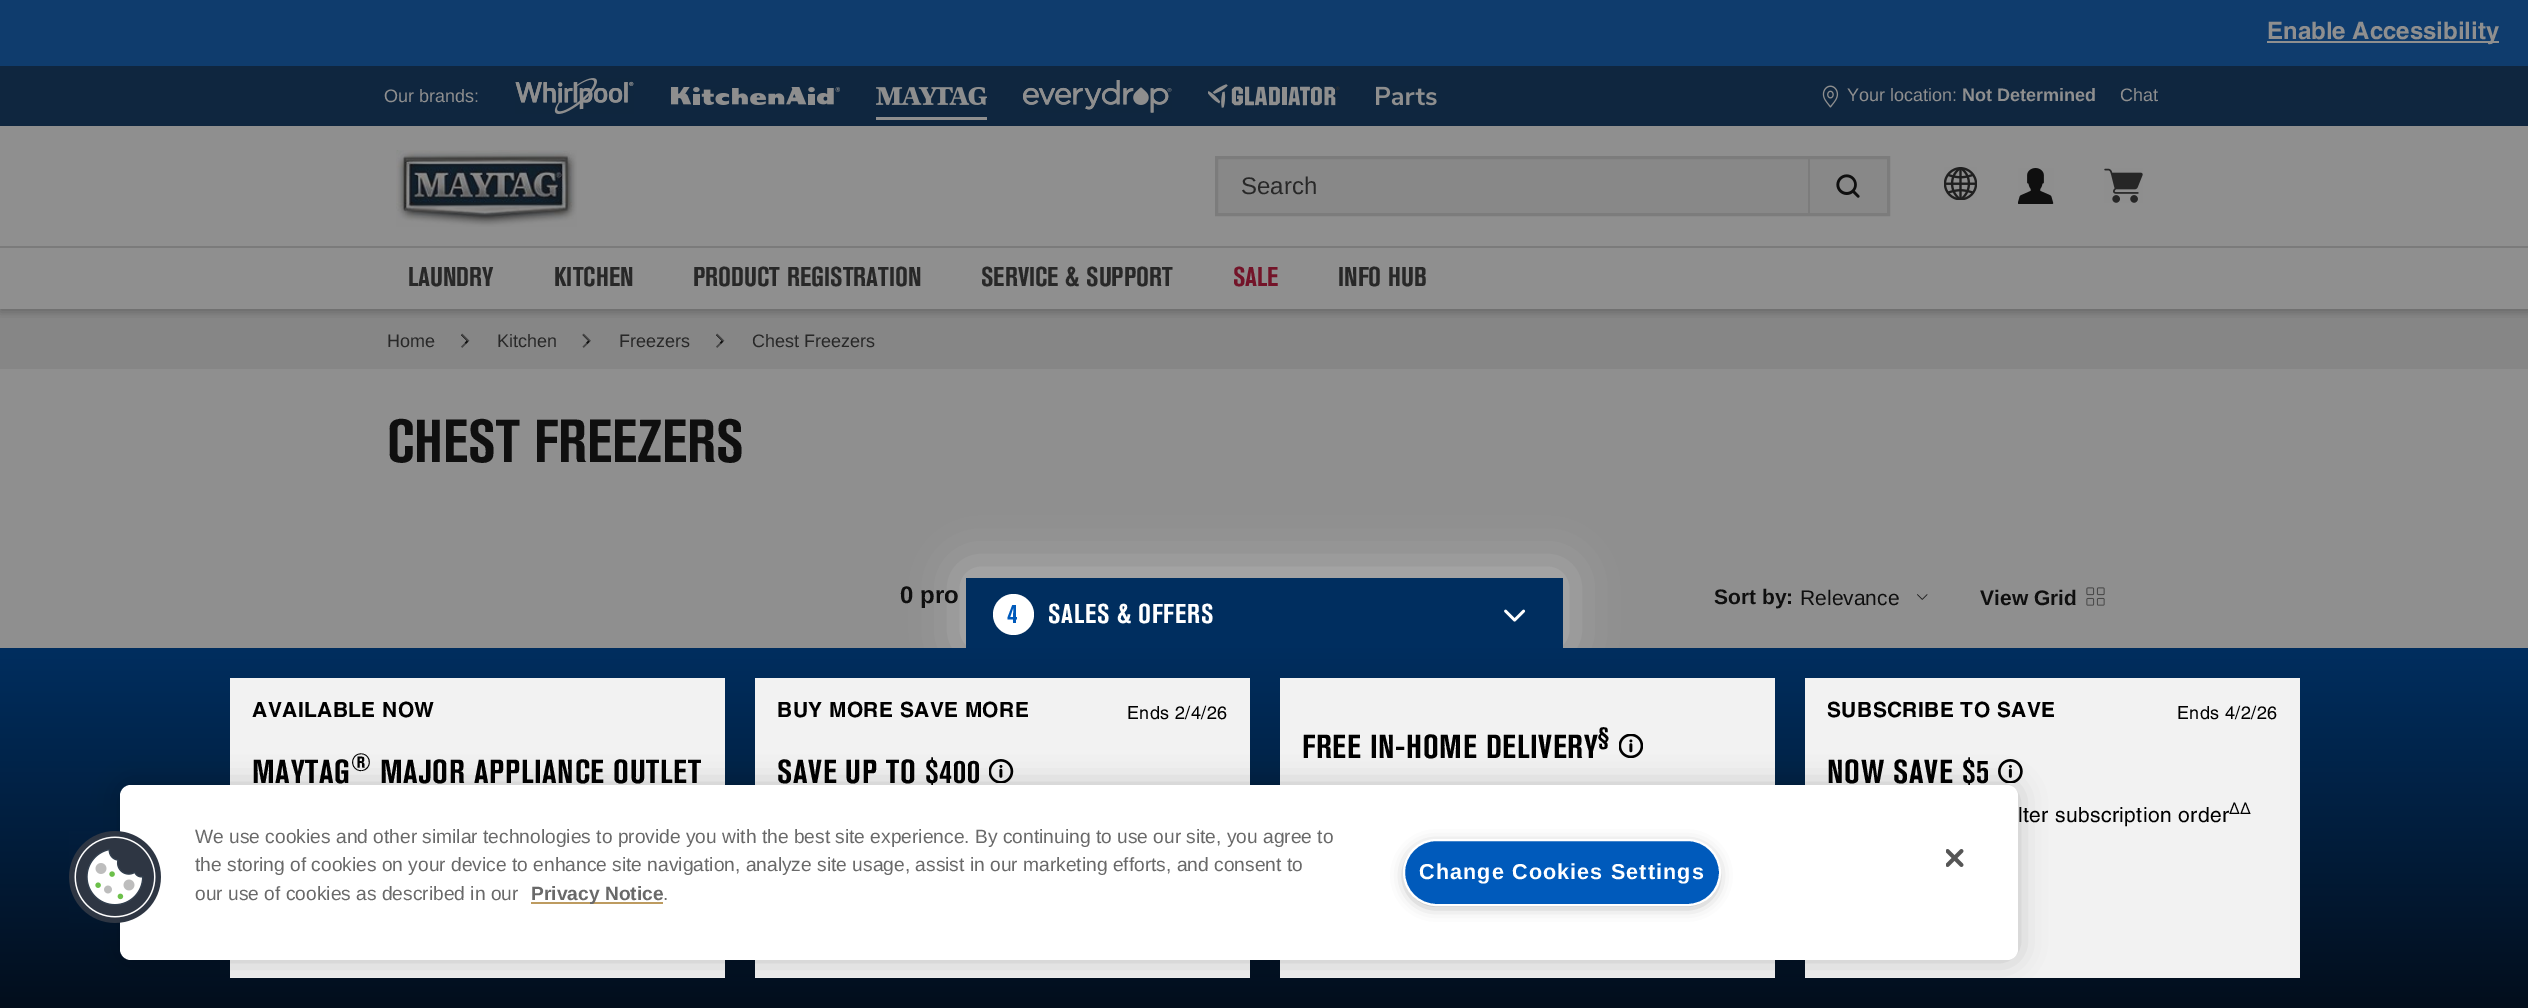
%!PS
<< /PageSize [2528 1008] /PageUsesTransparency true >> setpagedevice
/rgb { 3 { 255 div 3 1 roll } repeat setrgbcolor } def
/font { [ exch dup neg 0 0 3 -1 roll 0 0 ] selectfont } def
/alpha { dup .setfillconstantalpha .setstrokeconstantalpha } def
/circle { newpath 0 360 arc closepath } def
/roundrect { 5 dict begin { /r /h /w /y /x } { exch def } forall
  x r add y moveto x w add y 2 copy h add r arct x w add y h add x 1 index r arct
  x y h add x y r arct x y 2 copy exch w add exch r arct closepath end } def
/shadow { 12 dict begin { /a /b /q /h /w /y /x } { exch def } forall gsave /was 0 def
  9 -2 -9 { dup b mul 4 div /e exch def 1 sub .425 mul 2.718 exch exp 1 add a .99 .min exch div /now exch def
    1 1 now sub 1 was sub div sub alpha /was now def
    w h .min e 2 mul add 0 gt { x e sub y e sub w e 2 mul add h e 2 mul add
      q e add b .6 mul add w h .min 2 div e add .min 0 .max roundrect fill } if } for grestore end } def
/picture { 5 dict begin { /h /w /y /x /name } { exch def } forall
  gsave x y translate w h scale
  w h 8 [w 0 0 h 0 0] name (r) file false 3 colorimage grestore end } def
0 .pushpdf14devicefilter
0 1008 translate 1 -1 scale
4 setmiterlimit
143 143 143 rgb
0 0 2528 1008 rectfill
[
  [0 0 2528 66 15 60 109]
  [2267 41 232 2 143 143 143]
  [0 309 2528 60 134 134 134]
] { aload pop rgb rectfill } forall
gsave
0 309 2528 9 rectclip
15 15 15 rgb
0 129 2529 183 0 4.5 0.25 shadow
grestore
15 38 63 rgb
0 66 2528 60 rectfill
(img/1.rgb) 515 78 119 36 picture
(img/2.rgb) 671 87 169 18 picture
143 143 143 rgb
876 117 111 3 rectfill
(img/3.rgb) 876 87 111 18 picture
(img/4.rgb) 1023 80 149 33 picture
(img/5.rgb) 1208 84 132 24 picture
(img/6.rgb) 1376 86 61 20 picture
(img/7.rgb) 1822 85 17 23 picture
(img/8.rgb) 396 150 181 77 picture
136 136 136 rgb
1216.5 157.5 moveto 1888.5 157.5 lineto 1888.5 214.5 lineto 1216.5 214.5 lineto closepath gsave fill grestore
124 124 124 rgb
3 setlinewidth
stroke
1808 158 2 57 rectfill
(img/9.rgb) 1836 174 24 24 picture
(img/10.rgb) 1944 167 33 33 picture
(img/11.rgb) 2018 168 36 36 picture
(img/12.rgb) 2104 168 39 35 picture
123 123 123 rgb
0 246 2528 2 rectfill
(img/13.rgb) 461 333 9 15 picture
(img/14.rgb) 461 334 7 10 picture
(img/15.rgb) 582 333 9 15 picture
(img/16.rgb) 582 334 8 10 picture
(img/13.rgb) 716 333 9 15 picture
(img/14.rgb) 716 334 7 10 picture
(img/17.rgb) 1917 594 11 6 picture
(img/18.rgb) 2086 587 19 19 picture
143 143 143 rgb
0 642 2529 360 0 55.5 0.35 shadow
gsave 0 648 moveto 2528 648 lineto 2528 1008 lineto 0 1008 lineto closepath clip newpath
<< /ShadingType 2 /ColorSpace /DeviceRGB /Coords [1265 648 1265 1008] /Extend [true true] /Function << /FunctionType 2 /Domain [0 1] /C0 [0 0.18 0.373] /C1 [0.012 0.055 0.11] /N 1 >> >> shfill grestore
[
  [966 578 597 70 0 46 95]
  [755 678 495 300 242 242 242]
  [1280 678 495 300 242 242 242]
] { aload pop rgb rectfill } forall
gsave
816 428 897 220 rectclip
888 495 moveto 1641 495 lineto 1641 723 lineto 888 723 lineto closepath 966 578 moveto 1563 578 lineto 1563 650 lineto 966 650 lineto closepath eoclip newpath
255 255 255 rgb
966 573 597 72 0 25.5 0.35 shadow
grestore
255 255 255 rgb
1013.5 614.5 20.5 circle fill
(img/19.rgb) 1504 609 22 13 picture
242 242 242 rgb
230 678 495 300 rectfill
(img/20.rgb) 989 759 25 24 picture
(img/21.rgb) 1619 734 24 24 picture
1805 678 495 300 rectfill
(img/22.rgb) 1998 759 25 24 picture
0 0 0 rgb
120 785 1898 175 11 13.5 0.2 shadow
/Helvetica-Bold 24 font
143 143 143 rgb
2267 39 moveto (Enable Accessibility) show
/LiberationSans-Regular 18 font
384 102 moveto (Our brands:) show
1847 101 moveto (Your location:) show
/LiberationSans-Bold 18 font
1962 101 moveto (Not Determined) show
/LiberationSans-Regular 18 font
2120 101 moveto (Chat) show
/LiberationSans-Regular 24 font
40 40 40 rgb
1241 194 moveto (Search) show
/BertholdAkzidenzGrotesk-Bold 27 font
[
  [(LAUNDRY) 408 286]
  [(KITCHEN) 554 286]
  [(PRODUCT REGISTRATION) 693 286]
  [(SERVICE & SUPPORT) 981 286]
] { aload pop moveto show } forall
115 20 41 rgb
1233 286 moveto (SALE) show
40 40 40 rgb
1338 286 moveto (INFO HUB) show
/LiberationSans-Regular 18 font
[
  [(Home) 387 347]
  [(Kitchen) 497 347]
  [(Freezers) 619 347]
  [(Chest Freezers) 752 347]
] { aload pop moveto show } forall
/BertholdAkzidenzGrotesk-Bold 60 font
15 15 15 rgb
387 462 moveto (CHEST FREEZERS) show
/LiberationSans-Bold 24 font
900 603 moveto (0 pro) show
/LiberationSans-Bold 21 font
1714 604 moveto (Sort by:) show
/LiberationSans-Regular 21 font
1800 605 moveto (Relevance) show
/LiberationSans-Bold 21 font
1980 605 moveto (View Grid) show
/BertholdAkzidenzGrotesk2-Bold 27 font
0 90 187 rgb
1007 623 moveto 0.75 0 (4) ashow
255 255 255 rgb
1048 623 moveto 0.75 0 (SALES & OFFERS) ashow
/Helvetica-Bold 21 font
0 0 0 rgb
252 717 moveto 0.4 0 (AVAILABLE NOW) ashow
/BertholdAkzidenzGrotesk2-Bold 33 font
252 783 moveto 0.75 0 (MAYTAG) ashow
/BertholdAkzidenzGrotesk2-Bold 25 font
351 771 moveto 0.75 0 (®) ashow
/BertholdAkzidenzGrotesk2-Bold 33 font
380 783 moveto 0.75 0 (MAJOR APPLIANCE OUTLET) ashow
/Helvetica-Bold 21 font
777 717 moveto 0.4 0 (BUY MORE SAVE MORE) ashow
/Helvetica-Regular 18 font
1127 719 moveto 0.4 0 (Ends 2/4/26) ashow
/BertholdAkzidenzGrotesk2-Bold 33 font
777 783 moveto 0.75 0 (SAVE UP TO $400) ashow
1302 758 moveto 0.75 0 (FREE IN-HOME DELIVERY) ashow
/BertholdAkzidenzGrotesk2-Bold 25 font
1598 745 moveto 0.75 0 (§) ashow
/Helvetica-Bold 21 font
1827 717 moveto 0.4 0 (SUBSCRIBE TO SAVE) ashow
/Helvetica-Regular 18 font
2177 719 moveto 0.4 0 (Ends 4/2/26) ashow
/BertholdAkzidenzGrotesk2-Bold 33 font
1827 783 moveto 0.75 0 (NOW SAVE $5) ashow
/Helvetica-Regular 21 font
2018 822 moveto 0.4 0 (lter subscription order) ashow
/Helvetica-Regular 16 font
2229 814 moveto 0.4 0 (ΔΔ) ashow
255 255 255 rgb
120 785 1898 175 11 roundrect fill
(img/23.rgb) 69 831 92 92 picture
/LiberationSans-Regular 19.2 font
105 105 105 rgb
[
  [(We use cookies and other similar technologies to provide you with the best site experience. By continuing to use our site, you agree to) 195 843]
  [(the storing of cookies on your device to enhance site navigation, analyze site usage, assist in our marketing efforts, and consent to) 195 871]
  [(our use of cookies as described in our) 195 900]
] { aload pop moveto show } forall
189 155 96 rgb
531 902 132 2 rectfill
/LiberationSans-Bold 19.2 font
105 105 105 rgb
531 900 moveto (Privacy Notice) show
/LiberationSans-Regular 19.2 font
663 900 moveto (.) show
153 153 153 rgb
1407 846 309 59 29.5 7.5 1 shadow
0 90 187 rgb
1404 840 316 65 32.5 roundrect gsave fill grestore
255 255 255 rgb
2 setlinewidth
stroke
/LiberationSans-Bold 21.6 font
1419 879 moveto 1.1 0 (Change Cookies Settings) ashow
(img/24.rgb) 1946 849 18 18 picture
.poppdf14devicefilter showpage
